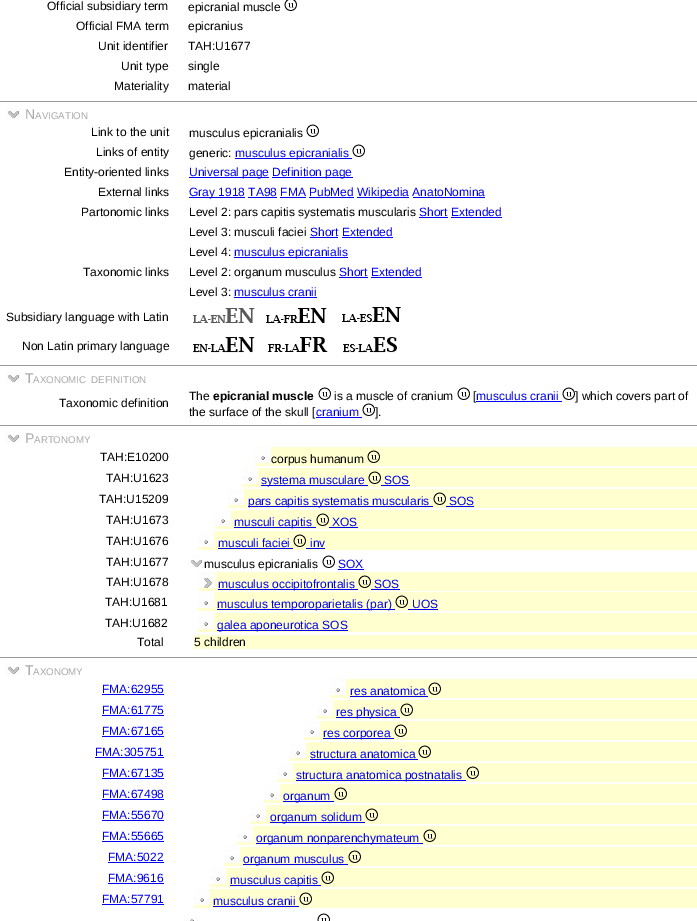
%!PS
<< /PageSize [697 921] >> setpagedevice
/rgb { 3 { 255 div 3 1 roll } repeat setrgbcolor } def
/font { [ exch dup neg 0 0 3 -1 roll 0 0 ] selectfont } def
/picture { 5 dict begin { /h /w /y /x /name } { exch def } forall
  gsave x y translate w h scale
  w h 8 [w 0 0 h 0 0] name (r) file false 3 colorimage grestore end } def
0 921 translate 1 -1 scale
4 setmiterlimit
255 255 255 rgb
0 0 697 921 rectfill
(img/1.rgb) 284 0 13 11 picture
153 153 153 rgb
0 101 697 1 rectfill
(img/2.rgb) 5 107 16 12 picture
(img/3.rgb) 306 124 13 13 picture
0 0 238 rgb
235 158 117 1 rectfill
(img/3.rgb) 352 144 13 13 picture
[
  [189 177 80 1 0 0 238]
  [272 177 81 1 0 0 238]
  [189 197 56 1 0 0 238]
  [357 197 52 1 0 0 238]
  [248 197 29 1 0 0 238]
  [280 197 26 1 0 0 238]
  [309 197 45 1 0 0 238]
  [413 197 72 1 0 0 238]
  [419 217 29 1 0 0 238]
  [451 217 51 1 0 0 238]
  [310 237 28 1 0 0 238]
  [342 237 51 1 0 0 238]
  [234 257 114 1 0 0 238]
  [339 277 29 1 0 0 238]
  [371 277 51 1 0 0 238]
  [234 297 83 1 0 0 238]
] { aload pop rgb rectfill } forall
(img/4.rgb) 192 308 63 15 picture
(img/5.rgb) 266 308 61 15 picture
(img/6.rgb) 342 307 59 15 picture
(img/7.rgb) 193 337 62 16 picture
(img/8.rgb) 268 337 60 15 picture
(img/9.rgb) 343 337 54 16 picture
153 153 153 rgb
0 365 697 1 rectfill
(img/2.rgb) 5 371 16 12 picture
(img/3.rgb) 318 387 13 13 picture
(img/3.rgb) 457 387 13 13 picture
(img/3.rgb) 562 387 13 13 picture
(img/3.rgb) 362 403 13 13 picture
0 425 697 1 rectfill
(img/2.rgb) 5 431 16 12 picture
255 255 208 rgb
255 447 442 19 rectfill
(img/10.rgb) 255 447 16 16 picture
(img/11.rgb) 367 450 13 13 picture
242 468 455 19 rectfill
(img/10.rgb) 242 468 16 16 picture
0 0 238 rgb
261 485 107 1 rectfill
381 485 29 1 rectfill
(img/11.rgb) 368 471 13 13 picture
255 255 208 rgb
228 489 469 19 rectfill
(img/10.rgb) 228 489 16 16 picture
0 0 238 rgb
248 506 185 1 rectfill
446 506 28 1 rectfill
(img/11.rgb) 433 492 13 13 picture
255 255 208 rgb
215 510 482 19 rectfill
(img/10.rgb) 215 510 16 16 picture
0 0 238 rgb
234 527 82 1 rectfill
329 527 29 1 rectfill
(img/11.rgb) 316 513 13 13 picture
255 255 208 rgb
198 531 499 19 rectfill
(img/10.rgb) 198 531 16 16 picture
0 0 238 rgb
218 548 75 1 rectfill
306 548 19 1 rectfill
(img/11.rgb) 293 534 13 13 picture
(img/2.rgb) 188 556 16 12 picture
(img/3.rgb) 322 555 13 13 picture
338 569 26 1 rectfill
255 255 208 rgb
199 572 498 19 rectfill
(img/12.rgb) 199 572 16 16 picture
0 0 238 rgb
218 589 140 1 rectfill
371 589 29 1 rectfill
(img/11.rgb) 358 575 13 13 picture
255 255 208 rgb
198 592 499 19 rectfill
(img/10.rgb) 198 592 16 16 picture
0 0 238 rgb
217 609 178 1 rectfill
408 609 30 1 rectfill
(img/11.rgb) 395 595 13 13 picture
255 255 208 rgb
198 613 499 19 rectfill
(img/10.rgb) 198 613 16 16 picture
[
  [217 630 131 1 0 0 238]
  [194 635 503 14 255 255 208]
  [0 657 697 1 153 153 153]
] { aload pop rgb rectfill } forall
(img/2.rgb) 5 663 16 12 picture
0 0 238 rgb
102 694 62 1 rectfill
255 255 208 rgb
330 679 367 19 rectfill
(img/10.rgb) 330 679 16 16 picture
0 0 238 rgb
350 696 78 1 rectfill
(img/11.rgb) 428 682 13 13 picture
102 715 62 1 rectfill
255 255 208 rgb
317 700 380 19 rectfill
(img/10.rgb) 317 700 16 16 picture
0 0 238 rgb
336 717 64 1 rectfill
(img/11.rgb) 400 703 13 13 picture
102 736 62 1 rectfill
255 255 208 rgb
304 721 393 19 rectfill
(img/10.rgb) 304 721 16 16 picture
0 0 238 rgb
323 738 71 1 rectfill
(img/11.rgb) 394 724 13 13 picture
95 757 69 1 rectfill
255 255 208 rgb
290 742 407 19 rectfill
(img/10.rgb) 290 742 16 16 picture
0 0 238 rgb
310 759 108 1 rectfill
(img/11.rgb) 418 745 13 13 picture
102 778 62 1 rectfill
255 255 208 rgb
277 763 420 19 rectfill
(img/10.rgb) 277 763 16 16 picture
0 0 238 rgb
296 780 170 1 rectfill
(img/11.rgb) 466 766 13 13 picture
102 799 62 1 rectfill
255 255 208 rgb
264 784 433 19 rectfill
(img/10.rgb) 264 784 16 16 picture
0 0 238 rgb
283 801 51 1 rectfill
(img/11.rgb) 334 787 13 13 picture
102 820 62 1 rectfill
255 255 208 rgb
250 805 447 19 rectfill
(img/10.rgb) 250 805 16 16 picture
0 0 238 rgb
270 822 95 1 rectfill
(img/11.rgb) 365 808 13 13 picture
102 841 62 1 rectfill
255 255 208 rgb
237 826 460 19 rectfill
(img/10.rgb) 237 826 16 16 picture
0 0 238 rgb
256 843 167 1 rectfill
(img/11.rgb) 423 829 13 13 picture
108 862 56 1 rectfill
255 255 208 rgb
224 847 473 19 rectfill
(img/10.rgb) 224 847 16 16 picture
0 0 238 rgb
243 864 105 1 rectfill
(img/11.rgb) 348 850 13 13 picture
108 883 56 1 rectfill
255 255 208 rgb
210 868 487 19 rectfill
(img/10.rgb) 210 868 16 16 picture
0 0 238 rgb
230 885 91 1 rectfill
(img/11.rgb) 321 871 13 13 picture
102 904 62 1 rectfill
255 255 208 rgb
194 889 503 19 rectfill
(img/10.rgb) 194 889 16 16 picture
0 0 238 rgb
213 906 86 1 rectfill
(img/11.rgb) 299 892 13 13 picture
(img/13.rgb) 184 918 14 3 picture
(img/14.rgb) 317 913 13 8 picture
/LiberationSans-Regular 12 font
0 0 0 rgb
[
  [(Official subsidiary term) 47 10]
  [(epicranial muscle) 188 11]
  [(Official FMA term) 76 30]
  [(epicranius) 188 30]
  [(Unit identifier) 98 50]
  [(TAH:U1677) 188 50]
  [(Unit type) 121 70]
  [(single) 188 70]
  [(Materiality) 114 90]
  [(material) 188 90]
] { aload pop moveto show } forall
/LiberationSans-Regular 14 font
170 170 170 rgb
25 119 moveto (N) show
/LiberationSans-Regular 9.75 font
35 119 moveto (AVIGATION) show
/LiberationSans-Regular 12 font
0 0 0 rgb
[
  [(Link to the unit) 91 136]
  [(musculus epicranialis) 189 137]
  [(Links of entity) 96 156]
  [(generic:) 189 157]
] { aload pop moveto show } forall
0 0 238 rgb
235 157 moveto (musculus epicranialis) show
0 0 0 rgb
64 176 moveto (Entity-oriented links) show
0 0 238 rgb
189 176 moveto (Universal page) show
272 176 moveto (Definition page) show
0 0 0 rgb
98 196 moveto (External links) show
0 0 238 rgb
189 196 moveto (Gray 1918 TA98 FMA PubMed) show
357 196 moveto (Wikipedia AnatoNomina) show
0 0 0 rgb
81 216 moveto (Partonomic links) show
189 216 moveto (Level 2: pars capitis systematis muscularis) show
0 0 238 rgb
419 216 moveto (Short Extended) show
0 0 0 rgb
189 236 moveto (Level 3: musculi faciei) show
0 0 238 rgb
310 236 moveto (Short Extended) show
0 0 0 rgb
189 256 moveto (Level 4:) show
0 0 238 rgb
234 256 moveto (musculus epicranialis) show
0 0 0 rgb
83 276 moveto (Taxonomic links) show
189 276 moveto (Level 2: organum musculus) show
0 0 238 rgb
339 276 moveto (Short Extended) show
0 0 0 rgb
189 296 moveto (Level 3:) show
0 0 238 rgb
234 296 moveto (musculus cranii) show
0 0 0 rgb
6 321 moveto (Subsidiary language with Latin) show
22 350 moveto (Non Latin primary language) show
/LiberationSans-Regular 14 font
170 170 170 rgb
25 383 moveto (T) show
/LiberationSans-Regular 9.75 font
33 383 moveto (AXONOMIC) show
91 383 moveto (DEFINITION) show
/LiberationSans-Regular 12 font
0 0 0 rgb
59 407 moveto (Taxonomic definition) show
189 400 moveto (The) show
/LiberationSans-Bold 12 font
213 400 moveto (epicranial muscle) show
/LiberationSans-Regular 12 font
334 400 moveto (is a muscle of cranium) show
473 400 moveto ([) show
0 0 238 rgb
476 400 moveto (musculus cranii) show
476 401 86 1 rectfill
0 0 0 rgb
575 400 moveto (] which covers part of) show
189 416 moveto (the surface of the skull [) show
0 0 238 rgb
316 416 moveto (cranium) show
316 417 46 1 rectfill
0 0 0 rgb
375 416 moveto (].) show
/LiberationSans-Regular 14 font
170 170 170 rgb
25 443 moveto (P) show
/LiberationSans-Regular 9.75 font
34 443 moveto (ARTONOMY) show
/LiberationSans-Regular 12 font
0 0 0 rgb
[
  [(TAH:E10200) 100 461]
  [(corpus humanum) 271 463]
  [(TAH:U1623) 106 482]
] { aload pop moveto show } forall
0 0 238 rgb
261 484 moveto (systema musculare) show
384 484 moveto (SOS) show
0 0 0 rgb
99 503 moveto (TAH:U15209) show
0 0 238 rgb
248 505 moveto (pars capitis systematis muscularis) show
449 505 moveto (SOS) show
0 0 0 rgb
106 524 moveto (TAH:U1673) show
0 0 238 rgb
234 526 moveto (musculi capitis) show
332 526 moveto (XOS) show
0 0 0 rgb
106 545 moveto (TAH:U1676) show
0 0 238 rgb
218 547 moveto (musculi faciei) show
310 547 moveto (inv) show
0 0 0 rgb
106 566 moveto (TAH:U1677) show
204 568 moveto (musculus epicranialis) show
0 0 238 rgb
338 568 moveto (SOX) show
0 0 0 rgb
106 586 moveto (TAH:U1678) show
0 0 238 rgb
218 588 moveto (musculus occipitofrontalis) show
374 588 moveto (SOS) show
0 0 0 rgb
105 606 moveto (TAH:U1681) show
0 0 238 rgb
217 608 moveto (musculus temporoparietalis \(par\)) show
412 608 moveto (UOS) show
0 0 0 rgb
105 627 moveto (TAH:U1682) show
0 0 238 rgb
217 629 moveto (galea aponeurotica SOS) show
0 0 0 rgb
137 646 moveto (Total) show
194 646 moveto (5 children) show
/LiberationSans-Regular 14 font
170 170 170 rgb
25 675 moveto (T) show
/LiberationSans-Regular 9.75 font
33 675 moveto (AXONOMY) show
/LiberationSans-Regular 12 font
0 0 238 rgb
[
  [(FMA:62955) 102 693]
  [(res anatomica) 350 695]
  [(FMA:61775) 102 714]
  [(res physica) 336 716]
  [(FMA:67165) 102 735]
  [(res corporea) 323 737]
  [(FMA:305751) 95 756]
  [(structura anatomica) 310 758]
  [(FMA:67135) 102 777]
  [(structura anatomica postnatalis) 296 779]
  [(FMA:67498) 102 798]
  [(organum) 283 800]
  [(FMA:55670) 102 819]
  [(organum solidum) 270 821]
  [(FMA:55665) 102 840]
  [(organum nonparenchymateum) 256 842]
  [(FMA:5022) 108 861]
  [(organum musculus) 243 863]
  [(FMA:9616) 108 882]
  [(musculus capitis) 230 884]
  [(FMA:57791) 102 903]
  [(musculus cranii) 213 905]
] { aload pop moveto show } forall
showpage
